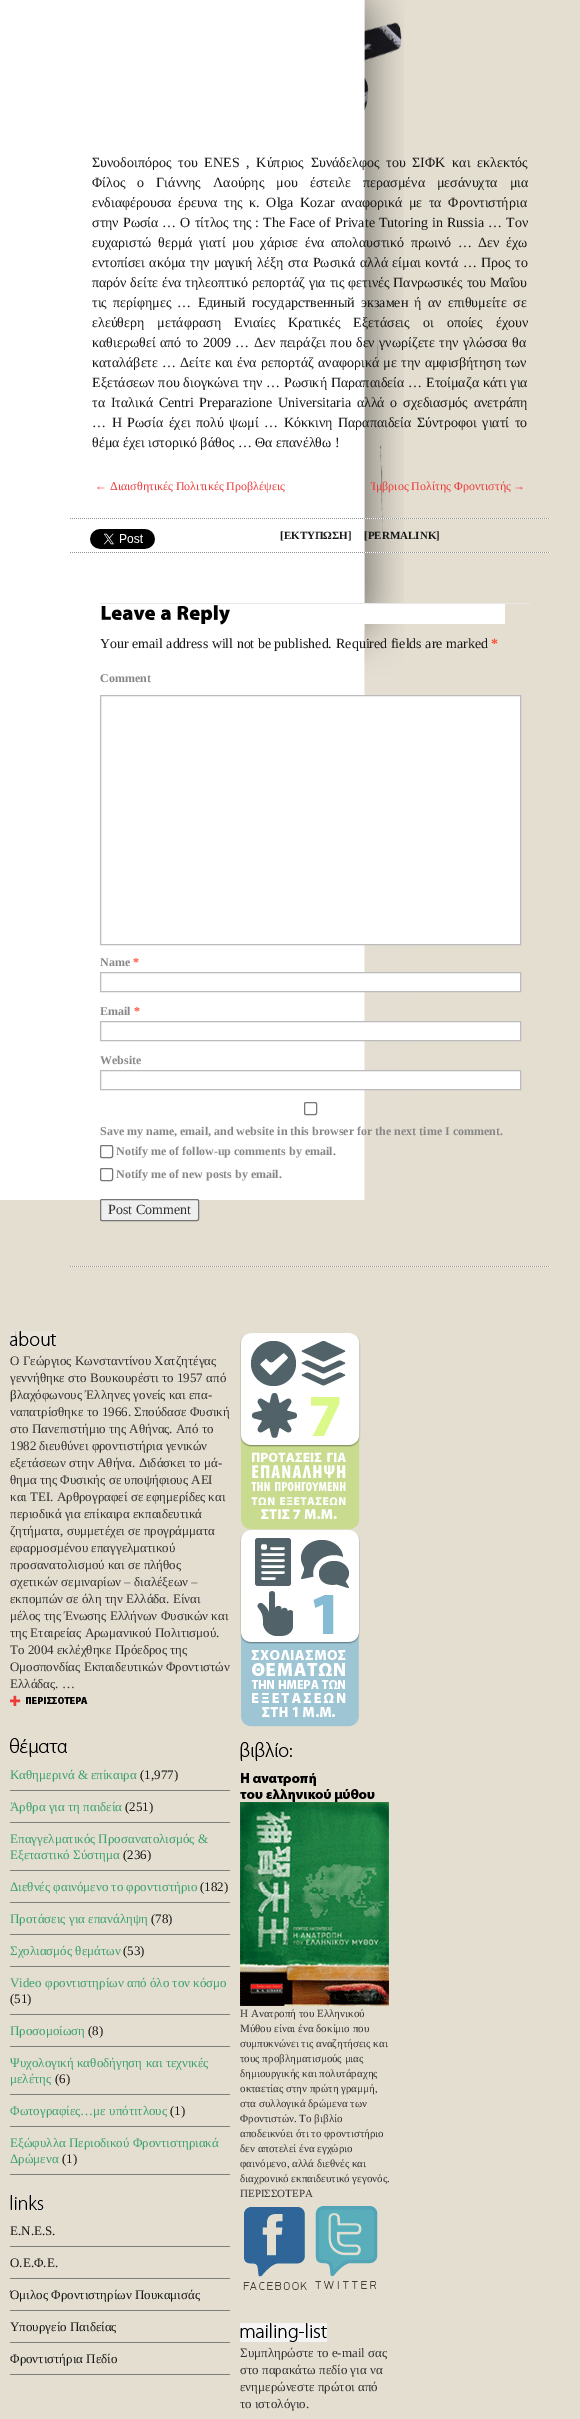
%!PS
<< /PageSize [580 2419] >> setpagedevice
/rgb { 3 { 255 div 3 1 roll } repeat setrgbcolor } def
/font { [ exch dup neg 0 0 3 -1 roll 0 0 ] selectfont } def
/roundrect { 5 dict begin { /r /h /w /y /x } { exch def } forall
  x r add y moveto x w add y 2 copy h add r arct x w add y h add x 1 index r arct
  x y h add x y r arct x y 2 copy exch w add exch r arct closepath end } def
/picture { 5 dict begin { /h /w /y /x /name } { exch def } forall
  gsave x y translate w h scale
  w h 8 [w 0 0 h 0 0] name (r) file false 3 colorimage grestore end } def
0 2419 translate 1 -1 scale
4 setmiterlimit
228 222 209 rgb
0 0 580 2419 rectfill
(img/1.rgb) 0 0 404 1200 picture
(img/2.rgb) 70 518 480 1 picture
(img/3.rgb) 90 529 65 20 picture
(img/2.rgb) 70 552 480 1 picture
231 231 231 rgb
100 603 430 1 rectfill
255 255 255 rgb
363 604 142 20 rectfill
(img/4.rgb) 101 606 54 14 picture
(img/5.rgb) 161 609 10 11 picture
(img/6.rgb) 177 605 53 20 picture
364 696 156 248 rectfill
187 187 187 rgb
100.5 695.5 420 249 rectstroke
255 255 255 rgb
364 973 156 18 rectfill
187 187 187 rgb
100.5 972.5 420 19 rectstroke
255 255 255 rgb
364 1022 156 18 rectfill
187 187 187 rgb
100.5 1021.5 420 19 rectstroke
255 255 255 rgb
364 1071 156 18 rectfill
187 187 187 rgb
100.5 1070.5 420 19 rectstroke
118 118 118 rgb
304.5 1102.5 12 12 1.5 roundrect stroke
100.5 1145.5 12 12 1.5 roundrect stroke
100.5 1168.5 12 12 1.5 roundrect stroke
239 239 239 rgb
100.5 1199.5 98 21 1.5 roundrect gsave fill grestore
118 118 118 rgb
stroke
(img/2.rgb) 70 1266 480 1 picture
(img/7.rgb) 10 1331 46 15 picture
(img/8.rgb) 10 1695 78 11 picture
(img/9.rgb) 10 1738 57 19 picture
[
  [10 1790 220 1 127 127 127]
  [10 1822 220 1 127 127 127]
  [10 1870 220 1 127 127 127]
  [10 1902 220 1 127 127 127]
  [10 1934 220 1 127 127 127]
  [10 1966 220 1 127 127 127]
  [10 2014 220 1 127 127 127]
  [10 2046 220 1 127 127 127]
  [10 2094 220 1 127 127 127]
  [10 2126 220 1 127 127 127]
  [10 2174 220 1 127 127 127]
] { aload pop rgb rectfill } forall
(img/10.rgb) 10 2195 34 15 picture
[
  [10 2246 220 1 127 127 127]
  [10 2278 220 1 127 127 127]
  [10 2310 220 1 127 127 127]
  [10 2342 220 1 127 127 127]
  [10 2374 220 1 127 127 127]
] { aload pop rgb rectfill } forall
(img/11.rgb) 240 1333 121 197 picture
(img/12.rgb) 240 1530 120 197 picture
(img/13.rgb) 240 1742 52 19 picture
(img/14.rgb) 240 1773 135 29 picture
(img/15.rgb) 240 1802 149 204 picture
(img/16.rgb) 243 2207 64 83 picture
(img/17.rgb) 315 2206 63 83 picture
(img/18.rgb) 240 2323 87 19 picture
/LiberationSerif-Regular 14 font
24 24 24 rgb
92 167 moveto 3.25 0 32 (Συνοδοιπόρος του ENES , Κύπριος Συνάδελφος του ΣΙΦΚ και εκλεκτός) widthshow
92 187 moveto 8.5 0 32 (Φίλος ο Γιάννης Λαούρης μου έστειλε περασμένα μεσάνυχτα μια) widthshow
92 207 moveto 3.1 0 32 (ενδιαφέρουσα έρευνα της κ. Olga Kozar αναφορικά με τα Φροντιστήρια) widthshow
92 227 moveto 0.5 0 32 (στην Ρωσία … Ο τίτλος της : The Face of Private Tutoring in Russia … Τον) widthshow
92 247 moveto 3.1 0 32 (ευχαριστώ θερμά γιατί μου χάρισε ένα απολαυστικό πρωινό … Δεν έχω) widthshow
92 267 moveto 0.9 0 32 (εντοπίσει ακόμα την μαγική λέξη στα Ρωσικά αλλά είμαι κοντά … Προς το) widthshow
92 287 moveto 0.25 0 32 (παρόν δείτε ένα τηλεοπτικό ρεπορτάζ για τις φετινές Πανρωσικές του Μαΐου) widthshow
92 307 moveto 2.75 0 32 (τις περίφημες … Единый государственный экзамен ή αν επιθυμείτε σε) widthshow
92 327 moveto 9.5 0 32 (ελεύθερη μετάφραση Ενιαίες Κρατικές Εξετάσεις οι οποίες έχουν) widthshow
92 347 moveto 1 0 32 (καθιερωθεί από το 2009 … Δεν πειράζει που δεν γνωρίζετε την γλώσσα θα) widthshow
92 367 moveto 0.75 0 32 (καταλάβετε … Δείτε και ένα ρεπορτάζ αναφορικά με την αμφισβήτηση των) widthshow
92 387 moveto 0.4 0 32 (Εξετάσεων που διογκώνει την … Ρωσική Παραπαιδεία … Ετοίμαζα κάτι για) widthshow
92 407 moveto 2.1 0 32 (τα Ιταλικά Centri Preparazione Universitaria αλλά ο σχεδιασμός ανετράπη) widthshow
92 427 moveto 2.1 0 32 (… Η Ρωσία έχει πολύ ψωμί … Κόκκινη Παραπαιδεία Σύντροφοι γιατί το) widthshow
92 447 moveto (θέμα έχει ιστορικό βάθος … Θα επανέλθω !) show
/LiberationSerif-Regular 12 font
237 59 59 rgb
[
  [(←) 95 490]
  [(Διαισθητικές Πολιτικές Προβλέψεις) 110 490]
  [(Ίμβριος Πολίτης Φροντιστής) 371 490]
  [(→) 513 490]
] { aload pop moveto show } forall
/LiberationSerif-Bold 11 font
24 24 24 rgb
280 539 moveto ([ΕΚΤΥΠΩΣΗ]) show
364 539 moveto ([PERMALINK]) show
/LiberationSerif-Regular 13.9 font
100 648 moveto (Your email address will not be published.) show
/LiberationSerif-Regular 14 font
336 648 moveto (Required fields are marked) show
/LiberationSerif-Bold 13.9 font
255 75 51 rgb
491 648 moveto (*) show
/LiberationSerif-Bold 12 font
136 136 136 rgb
100 682 moveto (Comment) show
100 966 moveto (Name) show
255 75 51 rgb
133 966 moveto (*) show
136 136 136 rgb
100 1015 moveto (Email) show
255 75 51 rgb
134 1015 moveto (*) show
136 136 136 rgb
[
  [(Website) 100 1064]
  [(Save my name, email, and website in this browser for the next time I comment.) 100 1135]
  [(Notify me of follow-up comments by email.) 116 1155]
  [(Notify me of new posts by email.) 116 1178]
] { aload pop moveto show } forall
/LiberationSerif-Regular 14 font
51 51 51 rgb
108 1214 moveto (Post Comment) show
/LiberationSerif-Regular 13 font
[
  [(Ο Γεώργιος Κωνσταντίνου Χατζητέγας) 10 1365]
  [(γεννήθηκε στο Βουκουρέστι το 1957 από) 10 1382]
  [(βλαχόφωνους Έλληνες γονείς και επα-) 10 1399]
  [(ναπατρίσθηκε το 1966. Σπούδασε Φυσική) 10 1416]
  [(στο Πανεπιστήμιο της Αθήνας. Από το) 10 1433]
  [(1982 διευθύνει φροντιστήρια γενικών) 10 1450]
  [(εξετάσεων στην Αθήνα. Διδάσκει το μά-) 10 1467]
  [(θημα της Φυσικής σε υποψήφιους ΑΕΙ) 10 1484]
  [(και ΤΕΙ. Αρθρογραφεί σε εφημερίδες και) 10 1501]
  [(περιοδικά για επίκαιρα εκπαιδευτικά) 10 1518]
  [(ζητήματα, συμμετέχει σε προγράμματα) 10 1535]
  [(εφαρμοσμένου επαγγελματικού) 10 1552]
  [(προσανατολισμού και σε πλήθος) 10 1569]
  [(σχετικών σεμιναρίων – διαλέξεων –) 10 1586]
  [(εκπομπών σε όλη την Ελλάδα. Είναι) 10 1603]
  [(μέλος της Ένωσης Ελλήνων Φυσικών και) 10 1620]
  [(της Εταιρείας Αρωμανικού Πολιτισμού.) 10 1637]
  [(Το 2004 εκλέχθηκε Πρόεδρος της) 10 1654]
  [(Ομοσπονδίας Εκπαιδευτικών Φροντιστών) 10 1671]
  [(Ελλάδας. …) 10 1688]
] { aload pop moveto show } forall
61 161 111 rgb
10 1779 moveto (Καθημερινά & επίκαιρα) show
24 24 24 rgb
140 1779 moveto (\(1,977\)) show
61 161 111 rgb
10 1811 moveto (Άρθρα για τη παιδεία) show
24 24 24 rgb
125 1811 moveto (\(251\)) show
61 161 111 rgb
10 1843 moveto (Επαγγελματικός Προσανατολισμός &) show
10 1859 moveto (Εξεταστικό Σύστημα) show
24 24 24 rgb
123 1859 moveto (\(236\)) show
61 161 111 rgb
10 1891 moveto (Διεθνές φαινόμενο το φροντιστήριο) show
24 24 24 rgb
200 1891 moveto (\(182\)) show
61 161 111 rgb
10 1923 moveto (Προτάσεις για επανάληψη) show
24 24 24 rgb
151 1923 moveto (\(78\)) show
61 161 111 rgb
10 1955 moveto (Σχολιασμός θεμάτων) show
24 24 24 rgb
123 1955 moveto (\(53\)) show
61 161 111 rgb
10 1987 moveto (Video φροντιστηρίων από όλο τον κόσμο) show
24 24 24 rgb
10 2003 moveto (\(51\)) show
61 161 111 rgb
10 2035 moveto (Προσομοίωση) show
24 24 24 rgb
88 2035 moveto (\(8\)) show
61 161 111 rgb
10 2067 moveto (Ψυχολογική καθοδήγηση και τεχνικές) show
10 2083 moveto (μελέτης) show
24 24 24 rgb
55 2083 moveto (\(6\)) show
61 161 111 rgb
10 2115 moveto (Φωτογραφίες…με υπότιτλους) show
24 24 24 rgb
170 2115 moveto (\(1\)) show
61 161 111 rgb
10 2147 moveto (Εξώφυλλα Περιοδικού Φροντιστηριακά) show
10 2163 moveto (Δρώμενα) show
24 24 24 rgb
[
  [(\(1\)) 62 2163]
  [(E.N.E.S.) 10 2235]
  [(Ο.Ε.Φ.Ε.) 10 2267]
  [(Όμιλος Φροντιστηρίων Πουκαμισάς) 10 2299]
  [(Υπουργείο Παιδείας) 10 2331]
  [(Φροντιστήρια Πεδίο) 10 2363]
] { aload pop moveto show } forall
/LiberationSerif-Regular 11 font
51 51 51 rgb
[
  [(Η Ανατροπή του Ελληνικού) 240 2017]
  [(Μύθου είναι ένα δοκίμιο που) 240 2032]
  [(συμπυκνώνει τις αναζητήσεις και) 240 2047]
  [(τους προβληματισμούς μιας) 240 2062]
  [(δημιουργικής και πολυτάραχης) 240 2077]
  [(οκταετίας στην πρώτη γραμμή,) 240 2092]
  [(στα συλλογικά δρώμενα των) 240 2107]
  [(Φροντιστών. Το βιβλίο) 240 2122]
  [(αποδεικνύει ότι το φροντιστήριο) 240 2137]
  [(δεν αποτελεί ένα εγχώριο) 240 2152]
  [(φαινόμενο, αλλά διεθνές και) 240 2167]
  [(διαχρονικό εκπαιδευτικό γεγονός.) 240 2182]
  [(ΠΕΡΙΣΣΟΤΕΡΑ) 240 2197]
] { aload pop moveto show } forall
/LiberationSerif-Regular 13 font
[
  [(Συμπληρώστε το e-mail σας) 240 2357]
  [(στο παρακάτω πεδίο για να) 240 2374]
  [(ενημερώνεστε πρώτοι από) 240 2391]
  [(το ιστολόγιο.) 240 2408]
] { aload pop moveto show } forall
showpage
